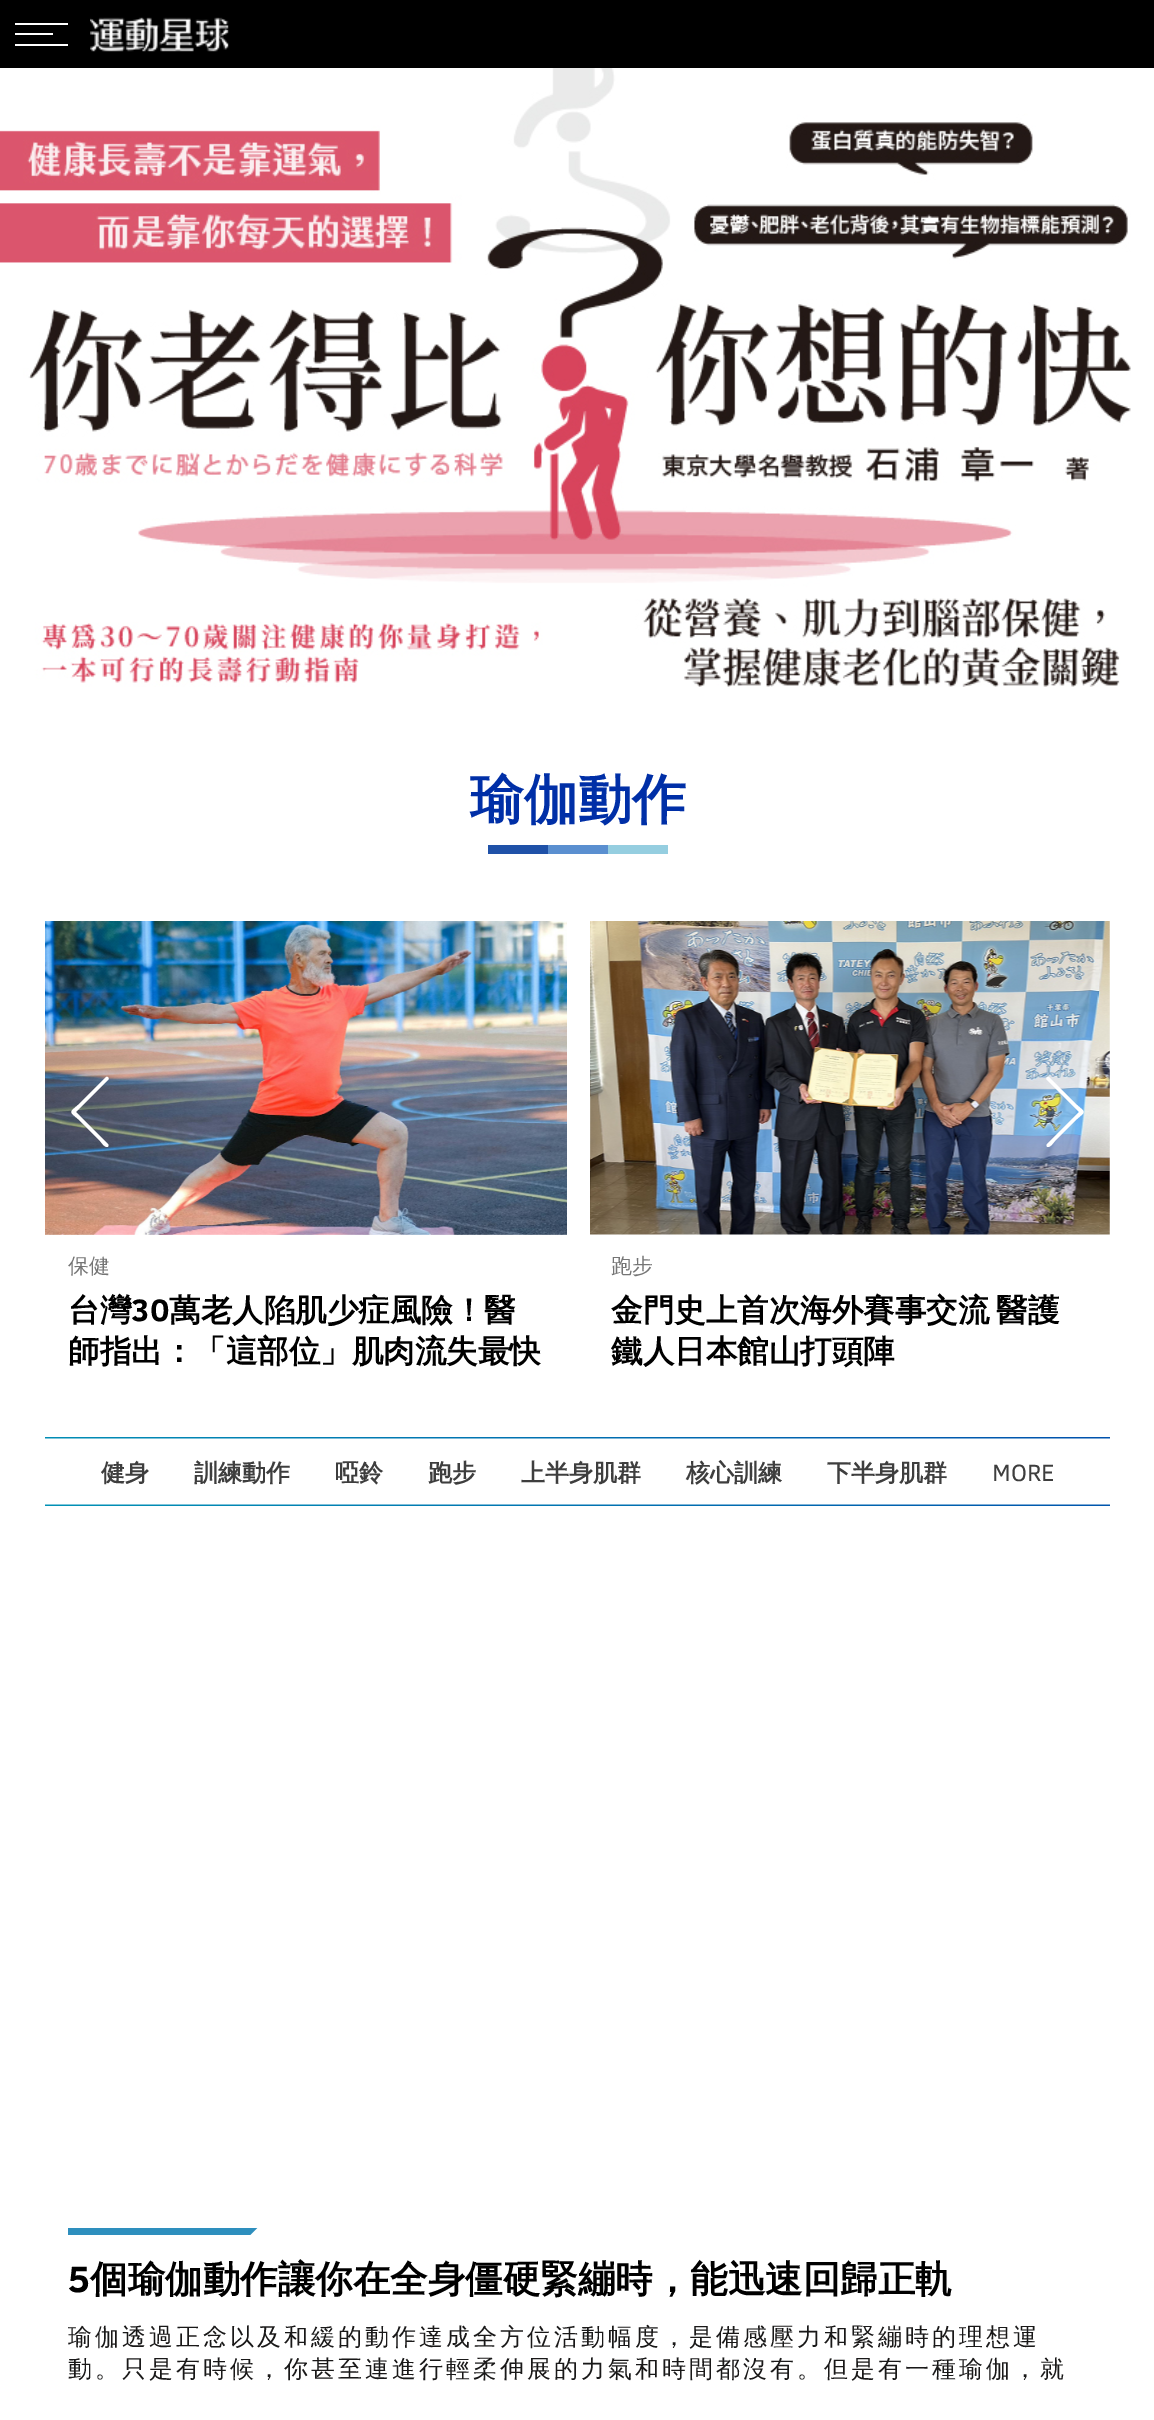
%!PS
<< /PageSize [1154 2420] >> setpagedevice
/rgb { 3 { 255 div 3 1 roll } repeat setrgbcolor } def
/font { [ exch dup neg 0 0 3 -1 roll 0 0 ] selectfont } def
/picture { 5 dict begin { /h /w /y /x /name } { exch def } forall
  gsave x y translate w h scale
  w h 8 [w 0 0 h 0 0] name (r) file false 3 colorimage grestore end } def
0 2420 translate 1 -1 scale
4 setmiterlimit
255 255 255 rgb
0 0 1154 2420 rectfill
[
  [0 0 1154 68 0 0 0]
  [15 23 53 2 255 255 255]
  [15 33 38 2 255 255 255]
  [15 44 53 2 255 255 255]
] { aload pop rgb rectfill } forall
(img/1.rgb) 90 17 139 35 picture
(img/2.rgb) 0 68 1131 619 picture
[
  [488 845 60 9 31 81 168]
  [548 845 60 9 90 143 208]
  [608 845 60 9 149 206 224]
] { aload pop rgb rectfill } forall
(img/3.rgb) 45 921 522 314 picture
255 255 255 rgb
107 1147 moveto 108 1147 109 1146 108 1144 curveto 76 1112 lineto 108 1080 lineto 110 1078 107 1076 106 1077 curveto 78 1105 lineto 69 1113 69 1111 78 1119 curveto 100 1141 lineto 102 1143 104 1147 107 1147 curveto closepath fill
(img/4.rgb) 590 921 520 314 picture
1048 1147 moveto 1047 1147 1046 1146 1047 1144 curveto 1079 1112 lineto 1047 1080 lineto 1045 1078 1048 1076 1049 1077 curveto 1077 1105 lineto 1086 1113 1086 1111 1077 1119 curveto 1055 1141 lineto 1053 1143 1051 1147 1048 1147 curveto closepath fill
(img/5.rgb) 45 1437 1065 69 picture
46 143 190 rgb
68 2228 190 7 rectfill
255 255 255 rgb
258 2238 moveto 247.5 2238 lineto 258 2227.5 lineto closepath fill
/WenQuanYiZenHei-Bold 54 font
0 47 167 rgb
470 818 moveto (瑜伽動作) show
/WenQuanYiZenHei-Medium 21 font
117 117 117 rgb
68 1273 moveto (保健) show
/WenQuanYiZenHei-Bold 31.5 font
0 0 0 rgb
68 1321 moveto (台灣) show
/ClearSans-Bold 31.5 font
131 1321 moveto (30) show
/WenQuanYiZenHei-Bold 31.5 font
169 1321 moveto (萬老人陷肌少症風險！醫) show
68 1362 moveto (師指出：「這部位」肌肉流失最快) show
/WenQuanYiZenHei-Medium 21 font
117 117 117 rgb
611 1273 moveto (跑步) show
/WenQuanYiZenHei-Bold 31.5 font
0 0 0 rgb
611 1321 moveto -2 0 32 (金門史上首次海外賽事交流 醫護) widthshow
611 1362 moveto (鐵人日本館山打頭陣) show
/WenQuanYiZenHei-Bold 24 font
62 62 62 rgb
[
  [(健身) 101 1481]
  [(訓練動作) 194 1481]
  [(啞鈴) 335 1481]
  [(跑步) 428 1481]
  [(上半身肌群) 521 1481]
  [(核心訓練) 686 1481]
  [(下半身肌群) 827 1481]
] { aload pop moveto show } forall
/ClearSans-Regular 24 font
992 1481 moveto (MORE) show
/ClearSans-Bold 37.5 font
0 0 0 rgb
68 2292 moveto (5) show
/WenQuanYiZenHei-Bold 37.5 font
90 2292 moveto (個瑜伽動作讓你在全身僵硬緊繃時，能迅速回歸正軌) show
gsave
68 2322 1020 62 rectclip
/WenQuanYiZenHei-Medium 24 font
25 24 24 rgb
68 2345 moveto 3 0 (瑜伽透過正念以及和緩的動作達成全方位活動幅度，是備感壓力和緊繃時的理想運) ashow
grestore
/WenQuanYiZenHei-Medium 24 font
25 24 24 rgb
68 2377 moveto 3 0 (動。只是有時候，你甚至連進行輕柔伸展的力氣和時間都沒有。但是有一種瑜伽，就) ashow
showpage
